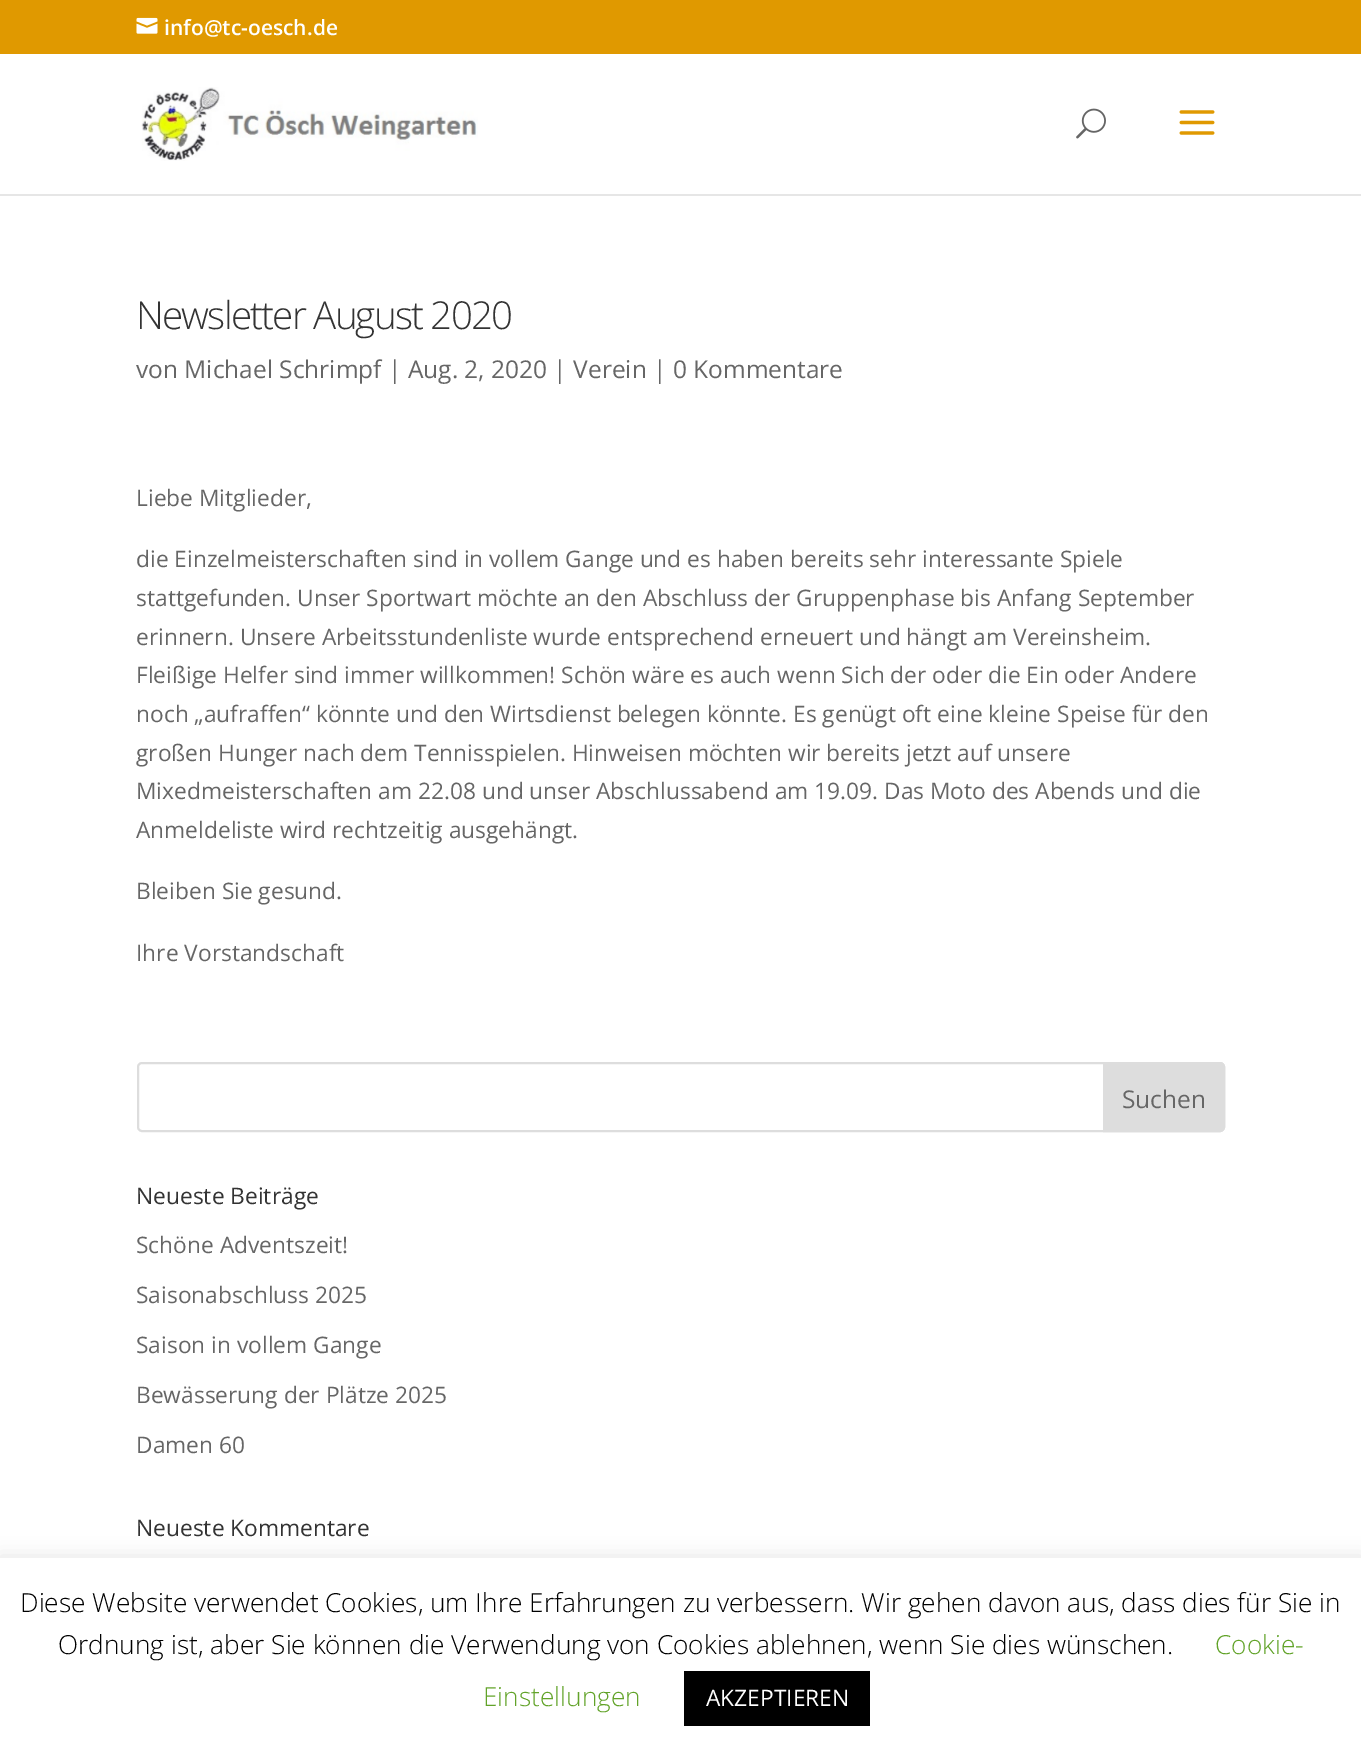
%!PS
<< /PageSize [1361 1755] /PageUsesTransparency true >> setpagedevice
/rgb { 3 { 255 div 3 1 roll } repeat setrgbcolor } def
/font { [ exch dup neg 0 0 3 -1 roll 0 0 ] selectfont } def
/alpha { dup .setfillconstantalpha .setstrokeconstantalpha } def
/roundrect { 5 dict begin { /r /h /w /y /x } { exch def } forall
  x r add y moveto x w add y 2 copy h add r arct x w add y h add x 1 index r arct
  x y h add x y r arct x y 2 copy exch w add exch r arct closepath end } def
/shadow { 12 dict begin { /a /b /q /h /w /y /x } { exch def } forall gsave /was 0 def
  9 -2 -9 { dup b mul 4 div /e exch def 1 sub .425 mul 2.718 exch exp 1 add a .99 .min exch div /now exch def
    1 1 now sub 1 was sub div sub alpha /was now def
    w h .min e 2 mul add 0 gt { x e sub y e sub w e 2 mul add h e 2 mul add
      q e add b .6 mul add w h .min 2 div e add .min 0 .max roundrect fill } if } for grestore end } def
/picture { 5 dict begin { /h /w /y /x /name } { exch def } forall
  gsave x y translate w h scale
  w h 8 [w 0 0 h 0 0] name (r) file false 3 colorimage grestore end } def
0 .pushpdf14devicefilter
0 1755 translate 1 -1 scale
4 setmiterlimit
255 255 255 rgb
0 0 1361 1755 rectfill
224 153 0 rgb
0 0 1361 54 rectfill
(img/1.rgb) 136 17 22 17 picture
230 230 230 rgb
0 194 moveto 0 196 lineto 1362 196 lineto 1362 56 lineto 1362 194 lineto closepath fill
(img/2.rgb) 141 87 337 74 picture
(img/3.rgb) 1076 108 30 31 picture
(img/4.rgb) 1179 110 36 25 picture
221 221 221 rgb
2 setlinewidth
138 1063 1086 68 4 roundrect stroke
1104 1063 moveto 1220 1063 lineto 1222 1063 1224 1065 1224 1067 curveto 1224 1127 lineto 1224 1129 1222 1131 1220 1131 curveto 1104 1131 lineto closepath gsave fill grestore
stroke
172 171 171 rgb
0 1556 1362 198 0 9 0.3 shadow
255 255 255 rgb
0 1558 1361 197 rectfill
0 0 0 rgb
684 1671 186 55 rectfill
/OpenSans-SemiBold 21 font
255 255 255 rgb
164 35 moveto (info@tc-oesch.de) show
/OpenSans-Light 38.5 font
51 51 51 rgb
136 329 moveto -1.75 0 (Newsletter August 2020) ashow
/OpenSans-Regular 24.5 font
102 102 102 rgb
136 378 moveto (von Michael Schrimpf | Aug. 2, 2020 | Verein | 0 Kommentare) show
/OpenSans-Regular 22.75 font
[
  [(Liebe Mitglieder,) 136 506]
  [(die Einzelmeisterschaften sind in vollem Gange und es haben bereits sehr interessante Spiele) 136 567]
  [(stattgefunden. Unser Sportwart möchte an den Abschluss der Gruppenphase bis Anfang September) 136 606]
  [(erinnern. Unsere Arbeitsstundenliste wurde entsprechend erneuert und hängt am Vereinsheim.) 136 645]
  [(Fleißige Helfer sind immer willkommen! Schön wäre es auch wenn Sich der oder die Ein oder Andere) 136 683]
  [(noch „aufraffen“ könnte und den Wirtsdienst belegen könnte. Es genügt oft eine kleine Speise für den) 136 722]
  [(großen Hunger nach dem Tennisspielen. Hinweisen möchten wir bereits jetzt auf unsere) 136 761]
  [(Mixedmeisterschaften am 22.08 und unser Abschlussabend am 19.09. Das Moto des Abends und die) 136 799]
  [(Anmeldeliste wird rechtzeitig ausgehängt.) 136 838]
  [(Bleiben Sie gesund.) 136 899]
  [(Ihre Vorstandschaft) 136 961]
] { aload pop moveto show } forall
/OpenSans-Regular 24.5 font
1122 1108 moveto (Suchen) show
/OpenSans-Regular 22.75 font
51 51 51 rgb
136 1204 moveto (Neueste Beiträge) show
102 102 102 rgb
[
  [(Schöne Adventszeit!) 136 1253]
  [(Saisonabschluss 2025) 136 1303]
  [(Saison in vollem Gange) 136 1353]
  [(Bewässerung der Plätze 2025) 136 1403]
  [(Damen 60) 136 1453]
] { aload pop moveto show } forall
51 51 51 rgb
136 1536 moveto (Neueste Kommentare) show
/OpenSans-Light 26.25 font
0 0 0 rgb
20 1612 moveto (Diese Website verwendet Cookies, um Ihre Erfahrungen zu verbessern. Wir gehen davon aus, dass dies für Sie in) show
58 1654 moveto (Ordnung ist, aber Sie können die Verwendung von Cookies ablehnen, wenn Sie dies wünschen.) show
98 163 41 rgb
1215 1654 moveto (Cookie-) show
483 1706 moveto (Einstellungen) show
/OpenSans-Regular 22.75 font
255 255 255 rgb
706 1706 moveto (AKZEPTIEREN) show
.poppdf14devicefilter showpage
